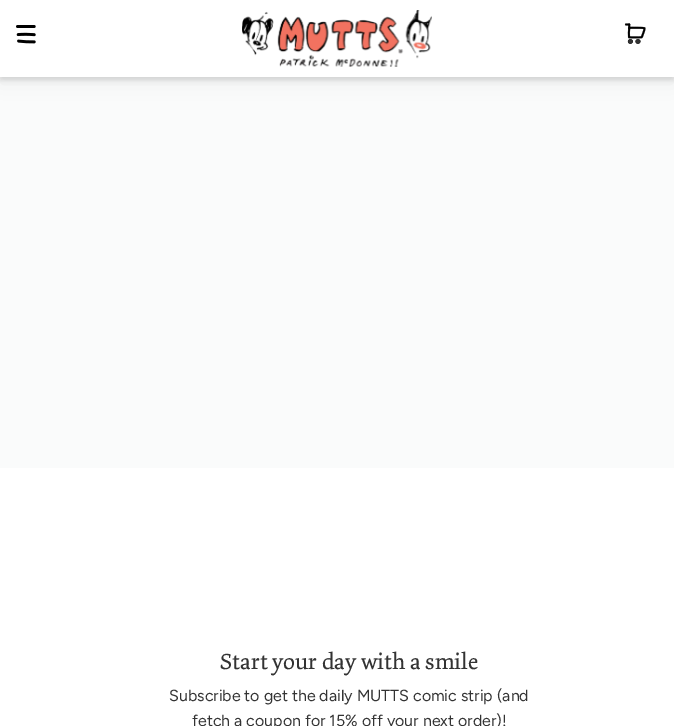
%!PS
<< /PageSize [674 726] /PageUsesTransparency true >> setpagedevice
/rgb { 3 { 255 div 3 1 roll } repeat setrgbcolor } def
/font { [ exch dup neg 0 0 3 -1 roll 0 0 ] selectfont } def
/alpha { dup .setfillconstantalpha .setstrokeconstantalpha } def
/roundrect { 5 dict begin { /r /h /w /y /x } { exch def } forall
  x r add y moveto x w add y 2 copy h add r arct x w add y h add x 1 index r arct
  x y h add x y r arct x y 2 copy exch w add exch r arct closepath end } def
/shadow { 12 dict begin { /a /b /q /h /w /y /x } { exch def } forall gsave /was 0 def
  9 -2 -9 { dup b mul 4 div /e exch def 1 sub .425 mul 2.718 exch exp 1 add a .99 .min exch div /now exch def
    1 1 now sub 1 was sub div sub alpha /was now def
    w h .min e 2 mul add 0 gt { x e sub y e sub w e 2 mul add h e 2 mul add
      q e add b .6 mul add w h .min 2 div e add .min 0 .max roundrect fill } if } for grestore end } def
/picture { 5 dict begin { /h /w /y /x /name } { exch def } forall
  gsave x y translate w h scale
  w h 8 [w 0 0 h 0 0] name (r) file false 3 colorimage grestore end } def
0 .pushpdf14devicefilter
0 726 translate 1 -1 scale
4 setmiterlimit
255 255 255 rgb
0 0 674 726 rectfill
250 251 251 rgb
0 77 674 391 rectfill
0 0 0 rgb
0 6 674 77 0 10 0.06 shadow
0 3 674 77 0 2.5 0.12 shadow
255 255 255 rgb
0 0 674 77 rectfill
(img/1.rgb) 16 25 20 19 picture
(img/2.rgb) 242 10 190 57 picture
(img/3.rgb) 624 23 22 21 picture
/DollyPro-Regular 23 font
51 51 51 rgb
220 669 moveto (Start your day with a smile) show
/Figtree-Regular 16 font
169 701 moveto (Subscribe to get the daily MUTTS comic strip \(and) show
192 726 moveto (fetch a coupon for 15% off your next order\)!) show
.poppdf14devicefilter showpage
